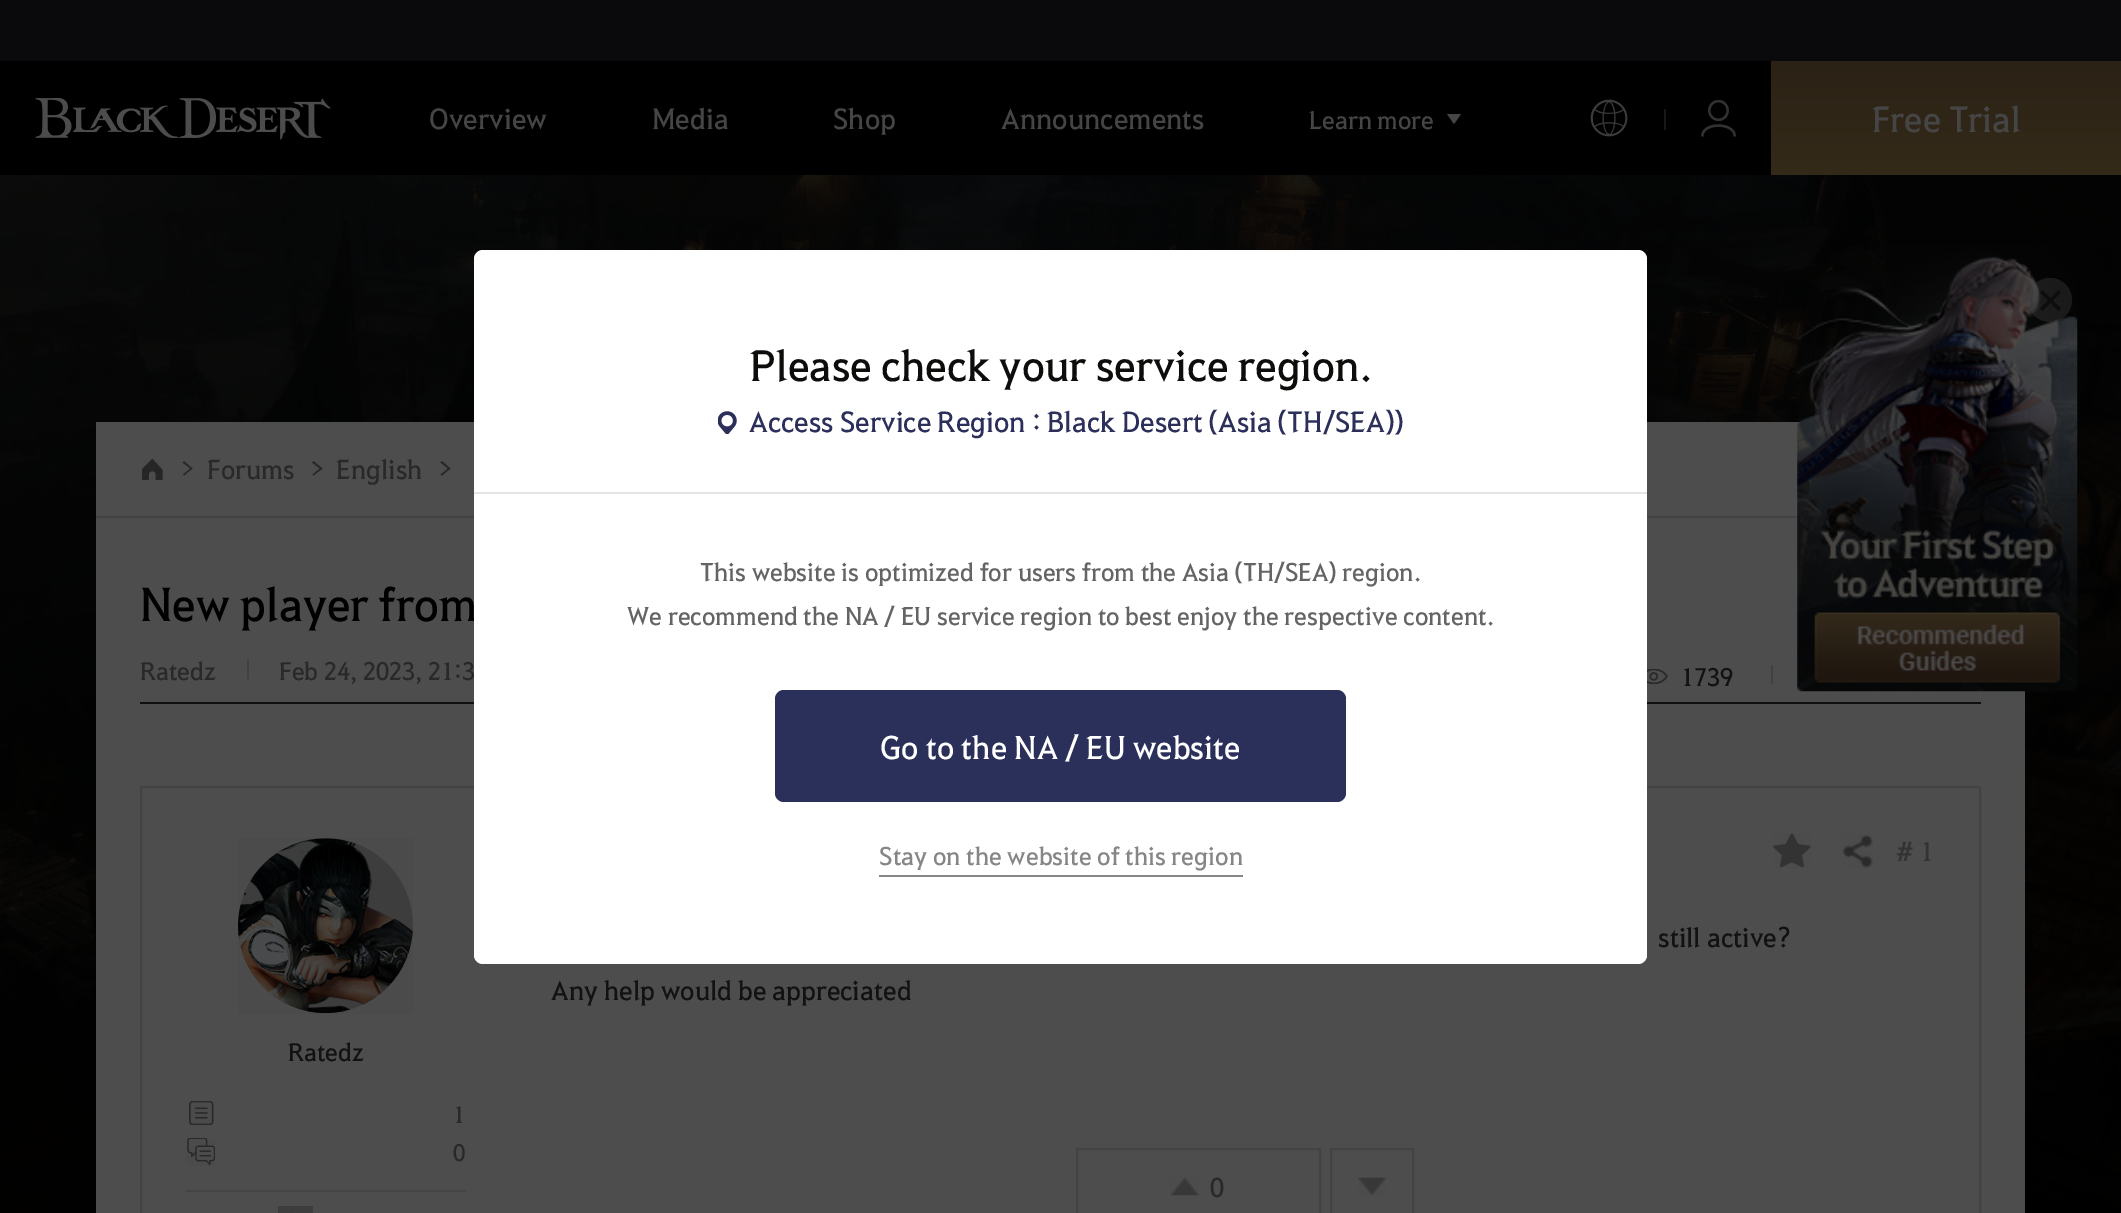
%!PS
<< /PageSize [2121 1213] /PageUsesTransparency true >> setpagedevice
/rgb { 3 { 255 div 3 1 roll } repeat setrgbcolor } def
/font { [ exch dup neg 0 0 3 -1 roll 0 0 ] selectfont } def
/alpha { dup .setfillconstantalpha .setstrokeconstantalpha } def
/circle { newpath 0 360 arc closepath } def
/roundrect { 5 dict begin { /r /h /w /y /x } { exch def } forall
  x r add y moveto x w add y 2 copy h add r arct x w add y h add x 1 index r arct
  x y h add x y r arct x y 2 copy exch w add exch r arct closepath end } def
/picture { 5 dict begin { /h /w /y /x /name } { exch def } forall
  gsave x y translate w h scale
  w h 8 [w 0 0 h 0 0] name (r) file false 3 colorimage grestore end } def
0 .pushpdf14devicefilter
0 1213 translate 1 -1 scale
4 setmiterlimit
10 10 12 rgb
0 0 2121 1213 rectfill
0 0 0 rgb
0 61 1771 114 rectfill
(img/1.rgb) 35 98 296 42 picture
69 69 69 rgb
1447 114 moveto 1461 114 lineto 1454 124 lineto closepath fill
(img/2.rgb) 1590 99 38 38 picture
23 24 25 rgb
1664 109 2 21 rectfill
(img/3.rgb) 1701 100 35 37 picture
gsave 1771 61 moveto 2121 61 lineto 2121 175 lineto 1771 175 lineto closepath clip newpath
<< /ShadingType 2 /ColorSpace /DeviceRGB /Coords [1946 61 1946 175] /Extend [true true] /Function << /FunctionType 2 /Domain [0 1] /C0 [0.169 0.133 0.086] /C1 [0.204 0.165 0.098] /N 1 >> >> shfill grestore
(img/5.rgb) 0 175 2121 1038 picture
77 77 77 rgb
96 422 1707 94 rectfill
67 67 67 rgb
96 516 1702 2 rectfill
(img/6.rgb) 142 459 21 21 picture
41 41 41 rgb
182.5 462.5 moveto 184 461 lineto 192.5 468.5 lineto 191.5 469.5 lineto closepath fill
183 474.5 moveto 191.5 467.5 lineto 192.5 468.5 lineto 184 475.5 lineto closepath fill
312 462.5 moveto 313.5 461 lineto 322.5 468.5 lineto 321 469.5 lineto closepath fill
312.5 474.5 moveto 321 467.5 lineto 322.5 468.5 lineto 313.5 475.5 lineto closepath fill
440.5 462.5 moveto 442 461 lineto 450.5 468.5 lineto 449 469.5 lineto closepath fill
440.5 474.5 moveto 449 467.5 lineto 450.5 468.5 lineto 442 475.5 lineto closepath fill
77 77 77 rgb
96 518 1929 695 rectfill
65 65 65 rgb
247 660 2 19 rectfill
(img/7.rgb) 1647 669 21 15 picture
1771 665 2 19 rectfill
15 15 15 rgb
140 702 1841 2 rectfill
67 67 67 rgb
2 setlinewidth
141 787 1839 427 rectstroke
61 61 61 rgb
325.5 925.5 87.5 circle fill
(img/8.rgb) 238 838 175 176 picture
(img/9.rgb) 189 1101 25 24 picture
(img/10.rgb) 187 1138 28 28 picture
[
  [186 1190 280 2 68 68 68]
  [278 1206 35 7 61 61 61]
  [295 1212 1 1 66 66 66]
] { aload pop rgb rectfill } forall
(img/11.rgb) 1773 833 38 35 picture
(img/12.rgb) 1842 834 31 34 picture
67 67 67 rgb
1077 1149 243 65 rectstroke
(img/13.rgb) 1170 1177 29 19 picture
1331 1149 82 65 rectstroke
(img/14.rgb) 1358 1177 28 19 picture
(img/15.rgb) 1797 245 281 447 picture
0.3 alpha
77 77 77 rgb
2050 300 22 circle fill
1 alpha
13 13 14 rgb
2058.5 290 moveto 2061 292.5 lineto 2042.5 311 lineto 2040 308.5 lineto closepath fill
2040 292.5 moveto 2042.5 290 lineto 2061 308.5 lineto 2058.5 311 lineto closepath fill
/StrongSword-Regular 28 font
69 69 69 rgb
[
  [(Overview) 429 129]
  [(Media) 652 129]
  [(Shop) 833 129]
  [(Announcements) 1001 129]
] { aload pop moveto show } forall
/StrongSword-Regular 24.5 font
1309 129 moveto (Learn more) show
/StrongSword-Regular 35 font
1872 132 moveto (Free Trial) show
/StrongSword-Regular 26.25 font
41 41 41 rgb
207 479 moveto (Forums) show
336 479 moveto (English) show
/StrongSword-Regular 45.5 font
0 0 0 rgb
140 621 moveto (New player from) show
/StrongSword-Regular 24.5 font
41 41 41 rgb
140 680 moveto (Ratedz) show
279 680 moveto (Feb 24, 2023, 21:3) show
255 255 255 rgb
474 250 1173 714 9 roundrect fill
43 48 90 rgb
775 690 571 112 9 roundrect fill
/StrongSword-Regular 31.6 font
255 255 255 rgb
880 759 moveto (Go to the NA / EU website) show
(img/4.rgb) 718 411 19 23 picture
/StrongSword-Regular 28 font
43 47 90 rgb
749 432 moveto (Access Service Region : Black Desert \(Asia \(TH/SEA\)\)) show
/StrongSword-Regular 24.65 font
134 134 134 rgb
879 865 moveto (Stay on the website of this region) show
879 875 364 2 rectfill
100 100 100 rgb
627 625 moveto (We recommend the NA / EU service region to best enjoy the respective content.) show
700 581 moveto (This website is optimized for users from the Asia \(TH/SEA\) region.) show
/StrongSword-Regular 42 font
13 13 12 rgb
750 381 moveto (Please check your service region.) show
228 228 228 rgb
474 492 1173 2 rectfill
/StrongSword-Regular 24.5 font
18 18 18 rgb
1681 686 moveto (1739) show
288 1061 moveto (Ratedz) show
/StrongSword-Regular 23 font
41 41 41 rgb
453 1123 moveto (1) show
453 1161 moveto (0) show
/StrongSword-Regular 26.25 font
52 51 51 rgb
1896 861 moveto (# 1) show
18 18 18 rgb
1658 947 moveto (still active?) show
551 1000 moveto (Any help would be appreciated) show
41 41 41 rgb
1210 1197 moveto (0) show
.poppdf14devicefilter showpage
